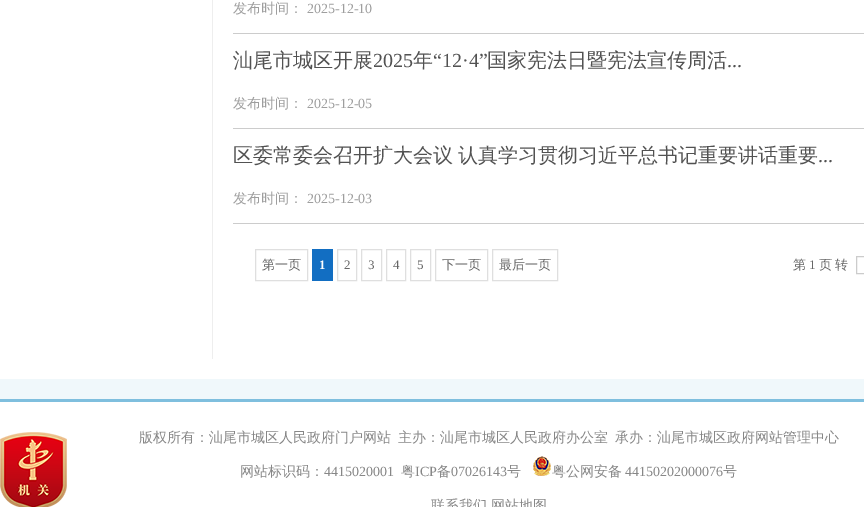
%!PS
<< /PageSize [864 507] >> setpagedevice
/rgb { 3 { 255 div 3 1 roll } repeat setrgbcolor } def
/font { [ exch dup neg 0 0 3 -1 roll 0 0 ] selectfont } def
/picture { 5 dict begin { /h /w /y /x /name } { exch def } forall
  gsave x y translate w h scale
  w h 8 [w 0 0 h 0 0] name (r) file false 3 colorimage grestore end } def
0 507 translate 1 -1 scale
4 setmiterlimit
240 248 251 rgb
0 0 864 507 rectfill
[
  [0 0 864 379 255 255 255]
  [212 0 1 359 238 238 238]
  [233 33 631 1 204 204 204]
  [233 128 631 1 204 204 204]
  [233 223 631 1 204 204 204]
] { aload pop rgb rectfill } forall
223 223 223 rgb
255.5 249.5 52 31 rectstroke
18 110 194 rgb
312 249 21 32 rectfill
223 223 223 rgb
337.5 249.5 19 31 rectstroke
361.5 249.5 20 31 rectstroke
386.5 249.5 19 31 rectstroke
410.5 249.5 20 31 rectstroke
435.5 249.5 52 31 rectstroke
492.5 249.5 65 31 rectstroke
204 204 204 rgb
856.5 256.5 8 17 rectstroke
255 255 255 rgb
0 402 864 105 rectfill
127 191 222 rgb
0 399 864 3 rectfill
(img/1.rgb) 0 432 67 75 picture
(img/2.rgb) 533 456 18 20 picture
/WenQuanYiZenHei-Medium 14 font
158 158 158 rgb
233 13 moveto (发布时间：) show
/LiberationSerif-Regular 14 font
307 13 moveto (2025-12-10) show
/WenQuanYiZenHei-Medium 20 font
82 82 82 rgb
233 67 moveto (汕尾市城区开展) show
/LiberationSerif-Regular 20 font
373 67 moveto (2025) show
/WenQuanYiZenHei-Medium 20 font
413 67 moveto (年) show
/LiberationSerif-Regular 20 font
433 67 moveto (“12·4”) show
/WenQuanYiZenHei-Medium 20 font
487 67 moveto (国家宪法日暨宪法宣传周活) show
/LiberationSerif-Regular 20 font
727 67 moveto (...) show
/WenQuanYiZenHei-Medium 14 font
158 158 158 rgb
233 108 moveto (发布时间：) show
/LiberationSerif-Regular 14 font
307 108 moveto (2025-12-05) show
/WenQuanYiZenHei-Medium 20 font
82 82 82 rgb
233 162 moveto -1 0 32 (区委常委会召开扩大会议 认真学习贯彻习近平总书记重要讲话重要) widthshow
/LiberationSerif-Regular 20 font
818 162 moveto (...) show
/WenQuanYiZenHei-Medium 14 font
158 158 158 rgb
233 203 moveto (发布时间：) show
/LiberationSerif-Regular 14 font
307 203 moveto (2025-12-03) show
/WenQuanYiZenHei-Medium 13 font
102 102 102 rgb
262 269 moveto (第一页) show
/LiberationSerif-Bold 13 font
255 255 255 rgb
319 269 moveto (1) show
/LiberationSerif-Regular 13 font
102 102 102 rgb
[
  [(2) 344 269]
  [(3) 368 269]
  [(4) 393 269]
  [(5) 417 269]
] { aload pop moveto show } forall
/WenQuanYiZenHei-Medium 13 font
[
  [(下一页) 442 269]
  [(最后一页) 499 269]
  [(第) 793 269]
] { aload pop moveto show } forall
/LiberationSerif-Regular 13 font
809 269 moveto (1) show
/WenQuanYiZenHei-Medium 13 font
819 269 moveto -1 0 32 (页 转) widthshow
/WenQuanYiZenHei-Medium 14 font
135 135 135 rgb
[
  [(版权所有：汕尾市城区人民政府门户网站) 139 442]
  [(主办：汕尾市城区人民政府办公室) 398 442]
  [(承办：汕尾市城区政府网站管理中心) 615 442]
  [(网站标识码：) 240 476]
] { aload pop moveto show } forall
/LiberationSerif-Regular 14 font
324 476 moveto (4415020001) show
/WenQuanYiZenHei-Medium 14 font
401 476 moveto (粤) show
/LiberationSerif-Regular 14 font
415 476 moveto (ICP) show
/WenQuanYiZenHei-Medium 14 font
437 476 moveto (备) show
/LiberationSerif-Regular 14 font
451 476 moveto (07026143) show
/WenQuanYiZenHei-Medium 14 font
507 476 moveto (号) show
552 476 moveto (粤公网安备) show
/LiberationSerif-Regular 14 font
625 476 moveto (44150202000076) show
/WenQuanYiZenHei-Medium 14 font
[
  [(号) 723 476]
  [(联系我们) 431 510]
  [(网站地图) 491 510]
] { aload pop moveto show } forall
showpage
